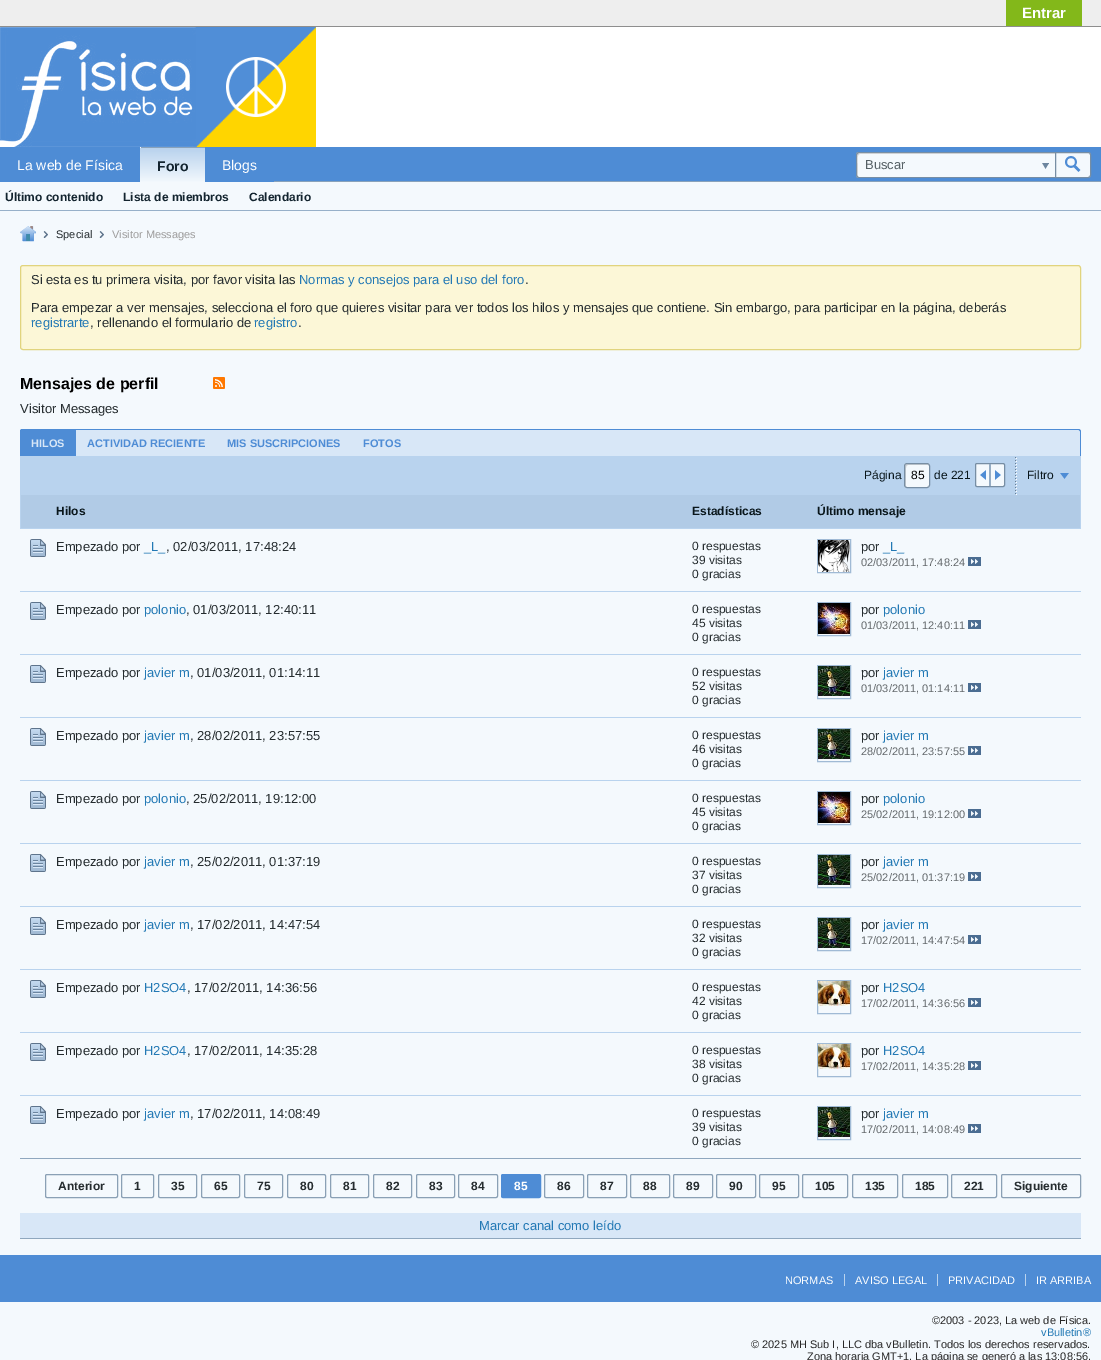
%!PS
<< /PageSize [1101 1360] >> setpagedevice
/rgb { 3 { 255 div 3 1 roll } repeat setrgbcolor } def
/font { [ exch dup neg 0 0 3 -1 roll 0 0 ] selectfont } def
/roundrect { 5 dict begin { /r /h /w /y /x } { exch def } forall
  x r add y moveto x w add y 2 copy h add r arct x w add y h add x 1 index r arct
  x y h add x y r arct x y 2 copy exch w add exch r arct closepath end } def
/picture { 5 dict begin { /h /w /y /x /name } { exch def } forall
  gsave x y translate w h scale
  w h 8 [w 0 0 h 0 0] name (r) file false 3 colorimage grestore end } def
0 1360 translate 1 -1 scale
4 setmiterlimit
244 249 253 rgb
0 0 1101 1360 rectfill
[
  [0 0 1101 26 238 238 238]
  [1006 0 76 26 131 184 26]
  [0 26 1101 1 142 142 142]
  [0 147 1101 34 78 140 213]
  [274 181 827 1 137 162 186]
] { aload pop rgb rectfill } forall
78 140 213 rgb
1 147 moveto 139 147 lineto 139.5 147 140 147.5 140 148 curveto 140 182 lineto 0 182 lineto 0 148 lineto 0 147.5 0.5 147 1 147 curveto closepath fill
gsave 141 147 moveto 204 147 lineto 204.5 147 205 147.5 205 148 curveto 140 148 lineto 140 147.5 140.5 147 141 147 curveto closepath clip newpath
<< /ShadingType 2 /ColorSpace /DeviceRGB /Coords [173 113 173 148] /Extend [true true] /Function << /FunctionType 2 /Domain [0 1] /C0 [0.722 0.824 0.929] /C1 [0.957 0.976 0.992] /N 1 >> >> shfill grestore
gsave 140 148 moveto 205 148 lineto 205 182 lineto 140 182 lineto closepath clip newpath
<< /ShadingType 2 /ColorSpace /DeviceRGB /Coords [173 148 173 183] /Extend [true true] /Function << /FunctionType 2 /Domain [0 1] /C0 [0.722 0.824 0.929] /C1 [0.957 0.976 0.992] /N 1 >> >> shfill grestore
137 162 186 rgb
141 147 64 1 rectfill
78 140 213 rgb
206 147 moveto 273 147 lineto 273.5 147 274 147.5 274 148 curveto 274 182 lineto 205 182 lineto 205 148 lineto 205 147.5 205.5 147 206 147 curveto closepath fill
255 255 255 rgb
316 27 785 120 rectfill
(img/1.rgb) 0 27 196 120 picture
(img/2.rgb) 196 27 120 120 picture
244 249 253 rgb
859 152 moveto 1055 152 lineto 1055 178 lineto 859 178 lineto 857.5 178 856 176.5 856 175 curveto 856 155 lineto 856 153.5 857.5 152 859 152 curveto closepath fill
206 209 212 rgb
860 154 moveto 1055 154 lineto 1055 153 lineto 858 153 lineto 856 154 857 157 857 158 curveto 857 161 856 176 858 177 curveto 858 166 lineto 858 164 856 154 860 154 curveto closepath fill
119 142 164 rgb
859 152 moveto 1055 152 lineto 1055 178 lineto 859 178 lineto 857 178 856 177 856 175 curveto 856 155 lineto 856 153 857 152 859 152 curveto closepath 859 153 moveto 1055 153 lineto 1055 177 lineto 859 177 lineto 858 177 857 176 857 175 curveto 857 155 lineto 857 154 858 153 859 153 curveto closepath eofill
(img/3.rgb) 1042 163 7 6 picture
244 249 253 rgb
1055.5 152.5 moveto 1088 152.5 lineto 1089.5 152.5 1090.5 153.5 1090.5 155 curveto 1090.5 175 lineto 1090.5 176.5 1089.5 177.5 1088 177.5 curveto 1055.5 177.5 lineto closepath gsave fill grestore
119 142 164 rgb
stroke
(img/4.rgb) 1065 156 16 16 picture
151 176 201 rgb
0 210 1101 1 rectfill
(img/5.rgb) 20 226 16 16 picture
(img/6.rgb) 43 231 5 7 picture
(img/6.rgb) 99 231 5 7 picture
252 247 215 rgb
20.5 265.5 1060 84 2.5 roundrect gsave fill grestore
225 212 126 rgb
stroke
(img/7.rgb) 213 377 12 12 picture
216 231 247 rgb
23 429 moveto 1078 429 lineto 1079.5 429 1081 430.5 1081 432 curveto 1081 456 lineto 20 456 lineto 20 432 lineto 20 430.5 21.5 429 23 429 curveto closepath fill
78 140 213 rgb
23 429 moveto 1078 429 lineto 1080 429 1081 430 1081 432 curveto 1081 456 lineto 20 456 lineto 20 432 lineto 20 430 21 429 23 429 curveto closepath 23 430 moveto 1078 430 lineto 1079 430 1080 431 1080 432 curveto 1080 456 lineto 21 456 lineto 21 432 lineto 21 431 22 430 23 430 curveto closepath eofill
216 231 247 rgb
24 430 moveto 1077 430 lineto 1078.5 430 1080 431.5 1080 433 curveto 1080 456 lineto 21 456 lineto 21 433 lineto 21 431.5 22.5 430 24 430 curveto closepath fill
78 140 213 rgb
23 429 moveto 73 429 lineto 74.5 429 76 430.5 76 432 curveto 76 456 lineto 20 456 lineto 20 432 lineto 20 430.5 21.5 429 23 429 curveto closepath fill
23 429 moveto 73 429 lineto 75 429 76 430 76 432 curveto 76 456 lineto 20 456 lineto 20 432 lineto 20 430 21 429 23 429 curveto closepath 23 430 moveto 73 430 lineto 74 430 75 431 75 432 curveto 75 456 lineto 21 456 lineto 21 432 lineto 21 431 22 430 23 430 curveto closepath eofill
185 211 238 rgb
20 456 1061 39 rectfill
244 249 253 rgb
904 463 26 25 3 roundrect fill
206 209 212 rgb
908 465 moveto 928 465 lineto 929 465 lineto 928.5 464.5 928 464 927 464 curveto 907 464 lineto 906 464 905 465 905 466 curveto 905 485 lineto 905 486 905.5 486.5 906 487 curveto 906 470 lineto 906 469 905.5 465 908 465 curveto closepath fill
119 142 164 rgb
904.5 463.5 25 24 2.5 roundrect stroke
244 249 253 rgb
975.5 463.5 29 23 1.5 roundrect gsave fill grestore
119 142 164 rgb
stroke
149 172 195 rgb
989 464 2 22 rectfill
(img/8.rgb) 980 470 6 10 picture
(img/9.rgb) 995 470 6 10 picture
(img/10.rgb) 1015 457 1 37 picture
(img/11.rgb) 1016 458 1 37 picture
(img/12.rgb) 1060 473 9 6 picture
[
  [20 1158 1061 1 143 167 190]
  [21 495 1059 33 177 203 230]
  [20 495 1 33 185 211 238]
  [1080 495 1 33 185 211 238]
  [20 528 36 1 185 211 238]
] { aload pop rgb rectfill } forall
(img/13.rgb) 30 539 16 18 picture
56 528 1025 1 rectfill
160 186 213 rgb
817.5 539.5 33 33 rectstroke
(img/14.rgb) 818 540 32 32 picture
(img/15.rgb) 968 557 13 9 picture
185 211 238 rgb
20 591 36 1 rectfill
(img/13.rgb) 30 602 16 18 picture
56 591 1025 1 rectfill
160 186 213 rgb
817.5 602.5 33 33 rectstroke
(img/16.rgb) 818 603 32 31 picture
(img/15.rgb) 968 620 13 9 picture
185 211 238 rgb
20 654 36 1 rectfill
(img/13.rgb) 30 665 16 18 picture
56 654 1025 1 rectfill
160 186 213 rgb
817.5 665.5 33 33 rectstroke
(img/17.rgb) 818 666 32 30 picture
(img/15.rgb) 968 683 13 9 picture
185 211 238 rgb
20 717 36 1 rectfill
(img/13.rgb) 30 728 16 18 picture
56 717 1025 1 rectfill
160 186 213 rgb
817.5 728.5 33 33 rectstroke
(img/17.rgb) 818 729 32 30 picture
(img/15.rgb) 968 746 13 9 picture
185 211 238 rgb
20 780 36 1 rectfill
(img/13.rgb) 30 791 16 18 picture
56 780 1025 1 rectfill
160 186 213 rgb
817.5 791.5 33 33 rectstroke
(img/16.rgb) 818 792 32 31 picture
(img/15.rgb) 968 809 13 9 picture
185 211 238 rgb
20 843 36 1 rectfill
(img/13.rgb) 30 854 16 18 picture
56 843 1025 1 rectfill
160 186 213 rgb
817.5 854.5 33 33 rectstroke
(img/17.rgb) 818 855 32 30 picture
(img/15.rgb) 968 872 13 9 picture
185 211 238 rgb
20 906 36 1 rectfill
(img/13.rgb) 30 917 16 18 picture
56 906 1025 1 rectfill
160 186 213 rgb
817.5 917.5 33 33 rectstroke
(img/17.rgb) 818 918 32 30 picture
(img/15.rgb) 968 935 13 9 picture
185 211 238 rgb
20 969 36 1 rectfill
(img/13.rgb) 30 980 16 18 picture
56 969 1025 1 rectfill
160 186 213 rgb
817.5 980.5 33 33 rectstroke
(img/18.rgb) 818 981 32 25 picture
(img/15.rgb) 968 998 13 9 picture
185 211 238 rgb
20 1032 36 1 rectfill
(img/13.rgb) 30 1043 16 18 picture
56 1032 1025 1 rectfill
160 186 213 rgb
817.5 1043.5 33 33 rectstroke
(img/18.rgb) 818 1044 32 25 picture
(img/15.rgb) 968 1061 13 9 picture
185 211 238 rgb
20 1095 36 1 rectfill
(img/13.rgb) 30 1106 16 18 picture
56 1095 1025 1 rectfill
160 186 213 rgb
817.5 1106.5 33 33 rectstroke
(img/17.rgb) 818 1107 32 30 picture
(img/15.rgb) 968 1124 13 9 picture
138 160 181 rgb
45.5 1174.5 72 23 1.5 roundrect stroke
121.5 1174.5 32 23 1.5 roundrect stroke
158.5 1174.5 38 23 1.5 roundrect stroke
201.5 1174.5 38 23 1.5 roundrect stroke
244.5 1174.5 38 23 1.5 roundrect stroke
287.5 1174.5 38 23 1.5 roundrect stroke
330.5 1174.5 38 23 1.5 roundrect stroke
373.5 1174.5 38 23 1.5 roundrect stroke
416.5 1174.5 38 23 1.5 roundrect stroke
458.5 1174.5 39 23 1.5 roundrect stroke
78 140 213 rgb
501.5 1174.5 39 23 1.5 roundrect gsave fill grestore
stroke
138 160 181 rgb
544.5 1174.5 39 23 1.5 roundrect stroke
587.5 1174.5 39 23 1.5 roundrect stroke
630.5 1174.5 39 23 1.5 roundrect stroke
673.5 1174.5 39 23 1.5 roundrect stroke
716.5 1174.5 39 23 1.5 roundrect stroke
759.5 1174.5 39 23 1.5 roundrect stroke
802.5 1174.5 45 23 1.5 roundrect stroke
852.5 1174.5 45 23 1.5 roundrect stroke
902.5 1174.5 45 23 1.5 roundrect stroke
951.5 1174.5 45 23 1.5 roundrect stroke
1001.5 1174.5 79 23 1.5 roundrect stroke
[
  [20 1213 1061 25 216 231 247]
  [20 1238 1061 1 143 167 190]
  [0 1255 1101 47 78 140 213]
  [844 1274 1 12 185 211 238]
  [937 1274 1 12 185 211 238]
  [1025 1274 1 12 185 211 238]
] { aload pop rgb rectfill } forall
/LiberationSans-Bold 15 font
255 255 255 rgb
1022 18 moveto (Entrar) show
/LiberationSans-Regular 14 font
17 170 moveto (La web de Física) show
/LiberationSans-Bold 14 font
19 36 47 rgb
157 171 moveto (Foro) show
/LiberationSans-Regular 14 font
255 255 255 rgb
222 170 moveto (Blogs) show
/LiberationSans-Regular 13 font
85 96 101 rgb
865 169 moveto (Buscar) show
/LiberationSans-Bold 12 font
19 36 47 rgb
[
  [(Último contenido) 5 201]
  [(Lista de miembros) 123 201]
  [(Calendario) 249 201]
] { aload pop moveto show } forall
/LiberationSans-Regular 11 font
37 44 47 rgb
56 238 moveto (Special) show
158 157 157 rgb
112 238 moveto (Visitor Messages) show
/LiberationSans-Regular 13 font
37 44 47 rgb
31 284 moveto (Si esta es tu primera visita, por favor visita las) show
35 121 181 rgb
299 284 moveto (Normas y consejos para el uso del foro) show
37 44 47 rgb
525 284 moveto (.) show
31 312 moveto (Para empezar a ver mensajes, selecciona el foro que quieres visitar para ver todos los hilos y mensajes que contiene. Sin embargo, para participar en la página, deberás) show
35 121 181 rgb
31 327 moveto (registrarte) show
37 44 47 rgb
90 327 moveto (, rellenando el formulario de) show
35 121 181 rgb
254 327 moveto (registro) show
37 44 47 rgb
298 327 moveto (.) show
/LiberationSans-Bold 16 font
0 0 0 rgb
20 389 moveto (Mensajes de perfil) show
/LiberationSans-Regular 13 font
37 44 47 rgb
20 413 moveto (Visitor Messages) show
/LiberationSans-Bold 11 font
216 231 247 rgb
31 447 moveto (HILOS) show
78 140 213 rgb
[
  [(ACTIVIDAD RECIENTE) 87 447]
  [(MIS SUSCRIPCIONES) 227 447]
  [(FOTOS) 363 447]
] { aload pop moveto show } forall
/LiberationSans-Regular 12 font
9 22 27 rgb
864 479 moveto (Página) show
0 0 0 rgb
911 479 moveto (85) show
9 22 27 rgb
934 479 moveto (de 221) show
1027 479 moveto (Filtro) show
/LiberationSans-Bold 12 font
[
  [(Hilos) 56 515]
  [(Estadísticas) 692 515]
  [(Último mensaje) 817 515]
] { aload pop moveto show } forall
/LiberationSans-Regular 13 font
37 44 47 rgb
56 551 moveto (Empezado por) show
35 121 181 rgb
144 551 moveto (_L_) show
37 44 47 rgb
166 551 moveto (, 02/03/2011, 17:48:24) show
/LiberationSans-Regular 12 font
[
  [(0 respuestas) 692 550]
  [(39 visitas) 692 564]
  [(0 gracias) 692 578]
] { aload pop moveto show } forall
/LiberationSans-Regular 13 font
861 551 moveto (por) show
35 121 181 rgb
883 551 moveto (_L_) show
/LiberationSans-Regular 11 font
101 106 109 rgb
861 566 moveto (02/03/2011, 17:48:24) show
/LiberationSans-Regular 13 font
37 44 47 rgb
56 614 moveto (Empezado por) show
35 121 181 rgb
144 614 moveto (polonio) show
37 44 47 rgb
186 614 moveto (, 01/03/2011, 12:40:11) show
/LiberationSans-Regular 12 font
[
  [(0 respuestas) 692 613]
  [(45 visitas) 692 627]
  [(0 gracias) 692 641]
] { aload pop moveto show } forall
/LiberationSans-Regular 13 font
861 614 moveto (por) show
35 121 181 rgb
883 614 moveto (polonio) show
/LiberationSans-Regular 11 font
101 106 109 rgb
861 629 moveto (01/03/2011, 12:40:11) show
/LiberationSans-Regular 13 font
37 44 47 rgb
56 677 moveto (Empezado por) show
35 121 181 rgb
144 677 moveto (javier m) show
37 44 47 rgb
190 677 moveto (, 01/03/2011, 01:14:11) show
/LiberationSans-Regular 12 font
[
  [(0 respuestas) 692 676]
  [(52 visitas) 692 690]
  [(0 gracias) 692 704]
] { aload pop moveto show } forall
/LiberationSans-Regular 13 font
861 677 moveto (por) show
35 121 181 rgb
883 677 moveto (javier m) show
/LiberationSans-Regular 11 font
101 106 109 rgb
861 692 moveto (01/03/2011, 01:14:11) show
/LiberationSans-Regular 13 font
37 44 47 rgb
56 740 moveto (Empezado por) show
35 121 181 rgb
144 740 moveto (javier m) show
37 44 47 rgb
190 740 moveto (, 28/02/2011, 23:57:55) show
/LiberationSans-Regular 12 font
[
  [(0 respuestas) 692 739]
  [(46 visitas) 692 753]
  [(0 gracias) 692 767]
] { aload pop moveto show } forall
/LiberationSans-Regular 13 font
861 740 moveto (por) show
35 121 181 rgb
883 740 moveto (javier m) show
/LiberationSans-Regular 11 font
101 106 109 rgb
861 755 moveto (28/02/2011, 23:57:55) show
/LiberationSans-Regular 13 font
37 44 47 rgb
56 803 moveto (Empezado por) show
35 121 181 rgb
144 803 moveto (polonio) show
37 44 47 rgb
186 803 moveto (, 25/02/2011, 19:12:00) show
/LiberationSans-Regular 12 font
[
  [(0 respuestas) 692 802]
  [(45 visitas) 692 816]
  [(0 gracias) 692 830]
] { aload pop moveto show } forall
/LiberationSans-Regular 13 font
861 803 moveto (por) show
35 121 181 rgb
883 803 moveto (polonio) show
/LiberationSans-Regular 11 font
101 106 109 rgb
861 818 moveto (25/02/2011, 19:12:00) show
/LiberationSans-Regular 13 font
37 44 47 rgb
56 866 moveto (Empezado por) show
35 121 181 rgb
144 866 moveto (javier m) show
37 44 47 rgb
190 866 moveto (, 25/02/2011, 01:37:19) show
/LiberationSans-Regular 12 font
[
  [(0 respuestas) 692 865]
  [(37 visitas) 692 879]
  [(0 gracias) 692 893]
] { aload pop moveto show } forall
/LiberationSans-Regular 13 font
861 866 moveto (por) show
35 121 181 rgb
883 866 moveto (javier m) show
/LiberationSans-Regular 11 font
101 106 109 rgb
861 881 moveto (25/02/2011, 01:37:19) show
/LiberationSans-Regular 13 font
37 44 47 rgb
56 929 moveto (Empezado por) show
35 121 181 rgb
144 929 moveto (javier m) show
37 44 47 rgb
190 929 moveto (, 17/02/2011, 14:47:54) show
/LiberationSans-Regular 12 font
[
  [(0 respuestas) 692 928]
  [(32 visitas) 692 942]
  [(0 gracias) 692 956]
] { aload pop moveto show } forall
/LiberationSans-Regular 13 font
861 929 moveto (por) show
35 121 181 rgb
883 929 moveto (javier m) show
/LiberationSans-Regular 11 font
101 106 109 rgb
861 944 moveto (17/02/2011, 14:47:54) show
/LiberationSans-Regular 13 font
37 44 47 rgb
56 992 moveto (Empezado por) show
35 121 181 rgb
144 992 moveto (H2SO4) show
37 44 47 rgb
187 992 moveto (, 17/02/2011, 14:36:56) show
/LiberationSans-Regular 12 font
[
  [(0 respuestas) 692 991]
  [(42 visitas) 692 1005]
  [(0 gracias) 692 1019]
] { aload pop moveto show } forall
/LiberationSans-Regular 13 font
861 992 moveto (por) show
35 121 181 rgb
883 992 moveto (H2SO4) show
/LiberationSans-Regular 11 font
101 106 109 rgb
861 1007 moveto (17/02/2011, 14:36:56) show
/LiberationSans-Regular 13 font
37 44 47 rgb
56 1055 moveto (Empezado por) show
35 121 181 rgb
144 1055 moveto (H2SO4) show
37 44 47 rgb
187 1055 moveto (, 17/02/2011, 14:35:28) show
/LiberationSans-Regular 12 font
[
  [(0 respuestas) 692 1054]
  [(38 visitas) 692 1068]
  [(0 gracias) 692 1082]
] { aload pop moveto show } forall
/LiberationSans-Regular 13 font
861 1055 moveto (por) show
35 121 181 rgb
883 1055 moveto (H2SO4) show
/LiberationSans-Regular 11 font
101 106 109 rgb
861 1070 moveto (17/02/2011, 14:35:28) show
/LiberationSans-Regular 13 font
37 44 47 rgb
56 1118 moveto (Empezado por) show
35 121 181 rgb
144 1118 moveto (javier m) show
37 44 47 rgb
190 1118 moveto (, 17/02/2011, 14:08:49) show
/LiberationSans-Regular 12 font
[
  [(0 respuestas) 692 1117]
  [(39 visitas) 692 1131]
  [(0 gracias) 692 1145]
] { aload pop moveto show } forall
/LiberationSans-Regular 13 font
861 1118 moveto (por) show
35 121 181 rgb
883 1118 moveto (javier m) show
/LiberationSans-Regular 11 font
101 106 109 rgb
861 1133 moveto (17/02/2011, 14:08:49) show
/LiberationSans-Bold 12 font
37 44 47 rgb
[
  [(Anterior) 58 1190]
  [(1) 134 1190]
  [(35) 171 1190]
  [(65) 214 1190]
  [(75) 257 1190]
  [(80) 300 1190]
  [(81) 343 1190]
  [(82) 386 1190]
  [(83) 429 1190]
  [(84) 471 1190]
] { aload pop moveto show } forall
255 255 255 rgb
514 1190 moveto (85) show
37 44 47 rgb
[
  [(86) 557 1190]
  [(87) 600 1190]
  [(88) 643 1190]
  [(89) 686 1190]
  [(90) 729 1190]
  [(95) 772 1190]
  [(105) 815 1190]
  [(135) 865 1190]
  [(185) 915 1190]
  [(221) 964 1190]
  [(Siguiente) 1014 1190]
] { aload pop moveto show } forall
/LiberationSans-Regular 13 font
35 121 181 rgb
479 1230 moveto (Marcar canal como leído) show
/LiberationSans-Regular 11 font
255 255 255 rgb
[
  [(NORMAS) 785 1284]
  [(AVISO LEGAL) 855 1284]
  [(PRIVACIDAD) 948 1284]
  [(IR ARRIBA) 1036 1284]
] { aload pop moveto show } forall
39 39 39 rgb
932 1324 moveto (©2003 - 2023, La web de Física.) show
35 121 181 rgb
1041 1336 moveto (vBulletin®) show
39 39 39 rgb
751 1348 moveto (© 2025 MH Sub I, LLC dba vBulletin. Todos los derechos reservados.) show
807 1360 moveto (Zona horaria GMT+1. La página se generó a las 13:08:56.) show
showpage
